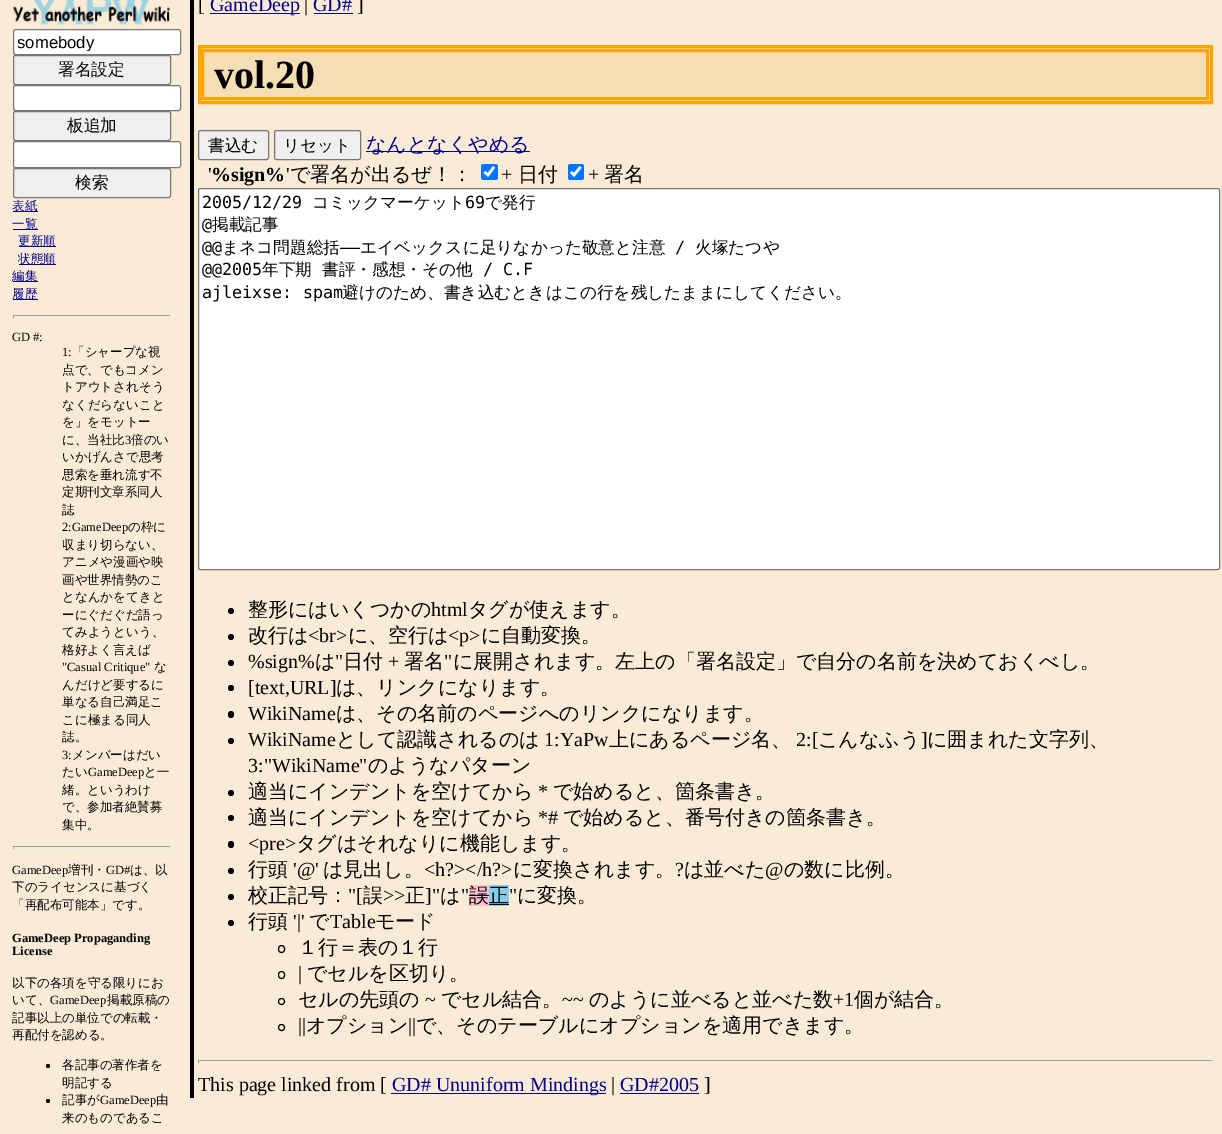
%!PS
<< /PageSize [1222 1134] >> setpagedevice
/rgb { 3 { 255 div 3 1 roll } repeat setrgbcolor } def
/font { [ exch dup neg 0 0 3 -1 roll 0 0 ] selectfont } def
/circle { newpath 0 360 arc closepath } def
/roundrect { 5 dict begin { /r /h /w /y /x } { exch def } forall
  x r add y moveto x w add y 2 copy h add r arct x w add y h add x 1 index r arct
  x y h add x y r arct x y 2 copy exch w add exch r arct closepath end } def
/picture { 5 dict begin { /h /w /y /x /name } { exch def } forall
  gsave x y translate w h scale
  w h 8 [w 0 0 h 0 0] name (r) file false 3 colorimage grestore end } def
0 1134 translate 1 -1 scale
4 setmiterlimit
250 235 215 rgb
0 0 1222 1134 rectfill
(img/1.rgb) 13 0 158 25 picture
255 255 255 rgb
13.5 29.5 167 25 2 roundrect gsave fill grestore
118 118 118 rgb
stroke
239 239 239 rgb
13.5 55.5 157 29 2 roundrect gsave fill grestore
118 118 118 rgb
stroke
255 255 255 rgb
13.5 85.5 167 25 2 roundrect gsave fill grestore
118 118 118 rgb
stroke
239 239 239 rgb
13.5 111.5 157 29 2 roundrect gsave fill grestore
118 118 118 rgb
stroke
255 255 255 rgb
13.5 141.5 167 26 2 roundrect gsave fill grestore
118 118 118 rgb
stroke
239 239 239 rgb
13.5 168.5 157 29 2 roundrect gsave fill grestore
118 118 118 rgb
stroke
[
  [13 211 25 1 0 0 139]
  [13 229 25 1 0 0 139]
  [19 246 37 1 0 0 139]
  [19 264 37 1 0 0 139]
  [13 281 25 1 0 0 139]
  [13 299 25 1 0 0 139]
  [13 315 158 1 159 159 159]
  [170 315 1 3 238 238 238]
  [13 316 158 1 238 238 238]
  [13 315 1 3 159 159 159]
  [13 846 158 1 159 159 159]
  [170 846 1 3 238 238 238]
  [13 848 158 1 238 238 238]
  [13 846 1 3 159 159 159]
] { aload pop rgb rectfill } forall
0 0 0 rgb
48 1066 2 circle fill
48 1101 2 circle fill
[
  [190 0 4 1098 0 0 0]
  [210 13 90 1 0 0 139]
  [314 13 39 1 0 0 139]
] { aload pop rgb rectfill } forall
245 222 179 rgb
199.5 46.5 moveto 1211.5 46.5 lineto 1211.5 102.5 lineto 199.5 102.5 lineto closepath gsave fill grestore
255 165 0 rgb
3 setlinewidth
stroke
202.5 50.5 1005 48 rectstroke
239 239 239 rgb
198.5 130.5 70 29 2 roundrect gsave fill grestore
118 118 118 rgb
1 setlinewidth
stroke
239 239 239 rgb
274.5 130.5 86 29 2 roundrect gsave fill grestore
118 118 118 rgb
stroke
0 0 139 rgb
366 151 164 1 rectfill
0 117 255 rgb
481 164 17 16 2.5 roundrect fill
255 255 255 rgb
2.6 setlinewidth
484.5 172 moveto 488 175 lineto 494 167 lineto stroke
0 117 255 rgb
568 164 16 16 2.5 roundrect fill
255 255 255 rgb
571 172 moveto 574 175 lineto 580.5 167 lineto stroke
198.5 188.5 1021 381 2 roundrect gsave fill grestore
118 118 118 rgb
1 setlinewidth
stroke
0 0 0 rgb
231 611 3 circle fill
231 637 3 circle fill
231 663 3 circle fill
231 688 3 circle fill
228 711 6 7 3 roundrect fill
231 741 3 circle fill
231 793 3 circle fill
231 818 3 circle fill
228 841 6 7 3 roundrect fill
231 871 3 circle fill
231 897 3 circle fill
[
  [469 885 20 21 255 192 203]
  [469 895 20 1 0 0 0]
  [489 885 20 21 135 206 235]
  [489 904 20 1 0 0 0]
] { aload pop rgb rectfill } forall
231 923 3 circle fill
278.5 945.5 6 7 3 roundrect stroke
278.5 971.5 6 7 3 roundrect stroke
281.5 1001.5 3 circle stroke
281.5 1027.5 3 circle stroke
[
  [198 1060 1015 1 159 159 159]
  [1211 1060 1 3 238 238 238]
  [198 1061 1015 1 238 238 238]
  [198 1060 1 3 159 159 159]
  [391 1093 215 1 0 0 139]
  [620 1093 79 1 0 0 139]
] { aload pop rgb rectfill } forall
gsave
18 33 158 18 rectclip
/LiberationSans-Regular 16.7 font
0 0 0 rgb
17 48 moveto (somebody) show
grestore
/WenQuanYiZenHei-Medium 16.7 font
0 0 0 rgb
[
  [(署名設定) 58 75]
  [(板追加) 67 131]
  [(検索) 75 188]
] { aload pop moveto show } forall
/WenQuanYiZenHei-Medium 12.5 font
0 0 139 rgb
[
  [(表紙) 12 210]
  [(一覧) 12 228]
  [(更新順) 18 245]
  [(状態順) 18 263]
  [(編集) 12 280]
  [(履歴) 12 298]
] { aload pop moveto show } forall
/LiberationSerif-Regular 12.5 font
0 0 0 rgb
12 341 moveto (GD #:) show
62 356 moveto (1:) show
/WenQuanYiZenHei-Medium 12.5 font
[
  [(「シャープな視) 72 356]
  [(点で、でもコメン) 62 374]
  [(トアウトされそう) 62 391]
  [(なくだらないこと) 62 409]
  [(を」をモットー) 62 426]
  [(に、当社比) 62 444]
] { aload pop moveto show } forall
/LiberationSerif-Regular 12.5 font
125 444 moveto (3) show
/WenQuanYiZenHei-Medium 12.5 font
[
  [(倍のい) 131 444]
  [(いかげんさで思考) 62 461]
  [(思索を垂れ流す不) 62 479]
  [(定期刊文章系同人) 62 496]
  [(誌) 62 514]
] { aload pop moveto show } forall
/LiberationSerif-Regular 12.5 font
62 531 moveto (2:GameDeep) show
/WenQuanYiZenHei-Medium 12.5 font
[
  [(の枠に) 128 531]
  [(収まり切らない、) 62 549]
  [(アニメや漫画や映) 62 566]
  [(画や世界情勢のこ) 62 584]
  [(となんかをてきと) 62 601]
  [(ーにぐだぐだ語っ) 62 619]
  [(てみようという、) 62 636]
  [(格好よく言えば) 62 654]
] { aload pop moveto show } forall
/LiberationSerif-Regular 12.5 font
62 671 moveto ("Casual Critique") show
/WenQuanYiZenHei-Medium 12.5 font
[
  [(な) 154 671]
  [(んだけど要するに) 62 689]
  [(単なる自己満足こ) 62 706]
  [(こに極まる同人) 62 724]
  [(誌。) 62 741]
] { aload pop moveto show } forall
/LiberationSerif-Regular 12.5 font
62 759 moveto (3:) show
/WenQuanYiZenHei-Medium 12.5 font
72 759 moveto (メンバーはだい) show
62 776 moveto (たい) show
/LiberationSerif-Regular 12.5 font
88 776 moveto (GameDeep) show
/WenQuanYiZenHei-Medium 12.5 font
[
  [(と一) 144 776]
  [(緒。というわけ) 62 794]
  [(で、参加者絶賛募) 62 811]
  [(集中。) 62 829]
] { aload pop moveto show } forall
/LiberationSerif-Regular 12.5 font
12 874 moveto (GameDeep) show
/WenQuanYiZenHei-Medium 12.5 font
68 874 moveto (増刊・) show
/LiberationSerif-Regular 12.5 font
106 874 moveto (GD#) show
/WenQuanYiZenHei-Medium 12.5 font
[
  [(は、以) 130 874]
  [(下のライセンスに基づく) 12 891]
  [(「再配布可能本」です。) 12 909]
] { aload pop moveto show } forall
/LiberationSerif-Bold 12.5 font
12 942 moveto (GameDeep Propaganding) show
12 955 moveto (License) show
/WenQuanYiZenHei-Medium 12.5 font
12 987 moveto (以下の各項を守る限りにお) show
12 1004 moveto (いて、) show
/LiberationSerif-Regular 12.5 font
50 1004 moveto (GameDeep) show
/WenQuanYiZenHei-Medium 12.5 font
[
  [(掲載原稿の) 107 1004]
  [(記事以上の単位での転載・) 12 1022]
  [(再配付を認める。) 12 1039]
  [(各記事の著作者を) 62 1069]
  [(明記する) 62 1087]
  [(記事が) 62 1104]
] { aload pop moveto show } forall
/LiberationSerif-Regular 12.5 font
100 1104 moveto (GameDeep) show
/WenQuanYiZenHei-Medium 12.5 font
156 1104 moveto (由) show
62 1122 moveto (来のものであるこ) show
/LiberationSerif-Regular 20 font
198 11 moveto ([) show
0 0 139 rgb
210 11 moveto (GameDeep) show
0 0 0 rgb
304 11 moveto (|) show
0 0 139 rgb
313 11 moveto (GD#) show
0 0 0 rgb
357 11 moveto (]) show
/LiberationSerif-Bold 40 font
214 88 moveto (vol.20) show
/WenQuanYiZenHei-Medium 16.7 font
208 151 moveto (書込む) show
283 151 moveto (リセット) show
/WenQuanYiZenHei-Medium 20 font
0 0 139 rgb
366 151 moveto (なんとなくやめる) show
/LiberationSerif-Regular 20 font
0 0 0 rgb
208 181 moveto (') show
/LiberationSerif-Bold 20 font
211 181 moveto (%sign%) show
/LiberationSerif-Regular 20 font
286 181 moveto (') show
/WenQuanYiZenHei-Medium 20 font
290 181 moveto (で署名が出るぜ！：) show
/LiberationSerif-Regular 20 font
501 181 moveto (+) show
/WenQuanYiZenHei-Medium 20 font
518 181 moveto (日付) show
/LiberationSerif-Regular 20 font
588 181 moveto (+) show
/WenQuanYiZenHei-Medium 20 font
604 181 moveto (署名) show
/DejaVuSansMono-Regular 16.7 font
202 208 moveto (2005/12/29) show
/WenQuanYiZenHei-Medium 16.7 font
312 208 moveto (コミックマーケット) show
/DejaVuSansMono-Regular 16.7 font
465 208 moveto (69) show
/WenQuanYiZenHei-Medium 16.7 font
485 208 moveto (で発行) show
/DejaVuSansMono-Regular 16.7 font
202 230 moveto (@) show
/WenQuanYiZenHei-Medium 16.7 font
212 230 moveto (掲載記事) show
/DejaVuSansMono-Regular 16.7 font
202 253 moveto (@@) show
/WenQuanYiZenHei-Medium 16.7 font
222 253 moveto (まネコ問題総括) show
/DejaVuSansMono-Regular 16.7 font
340 253 moveto (――) show
/WenQuanYiZenHei-Medium 16.7 font
360 253 moveto (エイベックスに足りなかった敬意と注意) show
/DejaVuSansMono-Regular 16.7 font
675 253 moveto (/) show
/WenQuanYiZenHei-Medium 16.7 font
695 253 moveto (火塚たつや) show
/DejaVuSansMono-Regular 16.7 font
202 275 moveto (@@2005) show
/WenQuanYiZenHei-Medium 16.7 font
262 275 moveto (年下期) show
322 275 moveto (書評・感想・その他) show
/DejaVuSansMono-Regular 16.7 font
483 275 moveto (/ C.F) show
202 298 moveto (ajleixse: spam) show
/WenQuanYiZenHei-Medium 16.7 font
342 298 moveto (避けのため、書き込むときはこの行を残したままにしてください。) show
/WenQuanYiZenHei-Medium 20 font
248 616 moveto (整形にはいくつかの) show
/LiberationSerif-Regular 20 font
431 616 moveto (html) show
/WenQuanYiZenHei-Medium 20 font
468 616 moveto (タグが使えます。) show
248 642 moveto (改行は) show
/LiberationSerif-Regular 20 font
308 642 moveto (<br>) show
/WenQuanYiZenHei-Medium 20 font
348 642 moveto (に、空行は) show
/LiberationSerif-Regular 20 font
448 642 moveto (<p>) show
/WenQuanYiZenHei-Medium 20 font
481 642 moveto (に自動変換。) show
/LiberationSerif-Regular 20 font
248 668 moveto (%sign%) show
/WenQuanYiZenHei-Medium 20 font
315 668 moveto (は) show
/LiberationSerif-Regular 20 font
335 668 moveto (") show
/WenQuanYiZenHei-Medium 20 font
343 668 moveto (日付) show
/LiberationSerif-Regular 20 font
388 668 moveto (+) show
/WenQuanYiZenHei-Medium 20 font
404 668 moveto (署名) show
/LiberationSerif-Regular 20 font
444 668 moveto (") show
/WenQuanYiZenHei-Medium 20 font
453 668 moveto (に展開されます。左上の「署名設定」で自分の名前を決めておくべし。) show
/LiberationSerif-Regular 20 font
248 694 moveto ([text,URL]) show
/WenQuanYiZenHei-Medium 20 font
336 694 moveto (は、リンクになります。) show
/LiberationSerif-Regular 20 font
248 720 moveto (WikiName) show
/WenQuanYiZenHei-Medium 20 font
336 720 moveto (は、その名前のページへのリンクになります。) show
/LiberationSerif-Regular 20 font
248 746 moveto (WikiName) show
/WenQuanYiZenHei-Medium 20 font
336 746 moveto (として認識されるのは) show
/LiberationSerif-Regular 20 font
544 746 moveto (1:YaPw) show
/WenQuanYiZenHei-Medium 20 font
609 746 moveto (上にあるページ名、) show
/LiberationSerif-Regular 20 font
796 746 moveto (2:[) show
/WenQuanYiZenHei-Medium 20 font
818 746 moveto (こんなふう) show
/LiberationSerif-Regular 20 font
921 746 moveto (]) show
/WenQuanYiZenHei-Medium 20 font
927 746 moveto (に囲まれた文字列、) show
/LiberationSerif-Regular 20 font
248 772 moveto (3:"WikiName") show
/WenQuanYiZenHei-Medium 20 font
368 772 moveto (のようなパターン) show
248 798 moveto (適当にインデントを空けてから) show
/LiberationSerif-Regular 20 font
538 798 moveto (*) show
/WenQuanYiZenHei-Medium 20 font
553 798 moveto (で始めると、箇条書き。) show
248 824 moveto (適当にインデントを空けてから) show
/LiberationSerif-Regular 20 font
538 824 moveto (*#) show
/WenQuanYiZenHei-Medium 20 font
563 824 moveto (で始めると、番号付きの箇条書き。) show
/LiberationSerif-Regular 20 font
248 850 moveto (<pre>) show
/WenQuanYiZenHei-Medium 20 font
296 850 moveto (タグはそれなりに機能します。) show
248 876 moveto (行頭) show
/LiberationSerif-Regular 20 font
293 876 moveto ('@') show
/WenQuanYiZenHei-Medium 20 font
323 876 moveto (は見出し。) show
/LiberationSerif-Regular 20 font
424 876 moveto (<h?></h?>) show
/WenQuanYiZenHei-Medium 20 font
513 876 moveto (に変換されます。) show
/LiberationSerif-Regular 20 font
675 876 moveto (?) show
/WenQuanYiZenHei-Medium 20 font
684 876 moveto (は並べた) show
/LiberationSerif-Regular 20 font
765 876 moveto (@) show
/WenQuanYiZenHei-Medium 20 font
784 876 moveto (の数に比例。) show
248 902 moveto (校正記号：) show
/LiberationSerif-Regular 20 font
348 902 moveto ("[) show
/WenQuanYiZenHei-Medium 20 font
363 902 moveto (誤) show
/LiberationSerif-Regular 20 font
383 902 moveto (>>) show
/WenQuanYiZenHei-Medium 20 font
405 902 moveto (正) show
/LiberationSerif-Regular 20 font
425 902 moveto (]") show
/WenQuanYiZenHei-Medium 20 font
440 902 moveto (は) show
/LiberationSerif-Regular 20 font
461 902 moveto (") show
/WenQuanYiZenHei-Medium 20 font
469 902 moveto (誤) show
489 902 moveto (正) show
/LiberationSerif-Regular 20 font
509 902 moveto (") show
/WenQuanYiZenHei-Medium 20 font
517 902 moveto (に変換。) show
248 928 moveto (行頭) show
/LiberationSerif-Regular 20 font
293 928 moveto ('|') show
/WenQuanYiZenHei-Medium 20 font
309 928 moveto (で) show
/LiberationSerif-Regular 20 font
330 928 moveto (Table) show
/WenQuanYiZenHei-Medium 20 font
375 928 moveto (モード) show
298 954 moveto (１行＝表の１行) show
/LiberationSerif-Regular 20 font
298 980 moveto (|) show
/WenQuanYiZenHei-Medium 20 font
307 980 moveto (でセルを区切り。) show
298 1006 moveto (セルの先頭の) show
/LiberationSerif-Regular 20 font
425 1006 moveto (~) show
/WenQuanYiZenHei-Medium 20 font
441 1006 moveto (でセル結合。) show
/LiberationSerif-Regular 20 font
562 1006 moveto (~~) show
/WenQuanYiZenHei-Medium 20 font
589 1006 moveto (のように並べると並べた数) show
/LiberationSerif-Regular 20 font
833 1006 moveto (+1) show
/WenQuanYiZenHei-Medium 20 font
854 1006 moveto (個が結合。) show
/LiberationSerif-Regular 20 font
298 1032 moveto (||) show
/WenQuanYiZenHei-Medium 20 font
306 1032 moveto (オプション) show
/LiberationSerif-Regular 20 font
408 1032 moveto (||) show
/WenQuanYiZenHei-Medium 20 font
416 1032 moveto (で、そのテーブルにオプションを適用できます。) show
/LiberationSerif-Regular 20 font
198 1091 moveto (This page linked from [) show
0 0 139 rgb
392 1091 moveto (GD# Ununiform Mindings) show
0 0 0 rgb
611 1091 moveto (|) show
0 0 139 rgb
620 1091 moveto (GD#2005) show
0 0 0 rgb
704 1091 moveto (]) show
showpage
